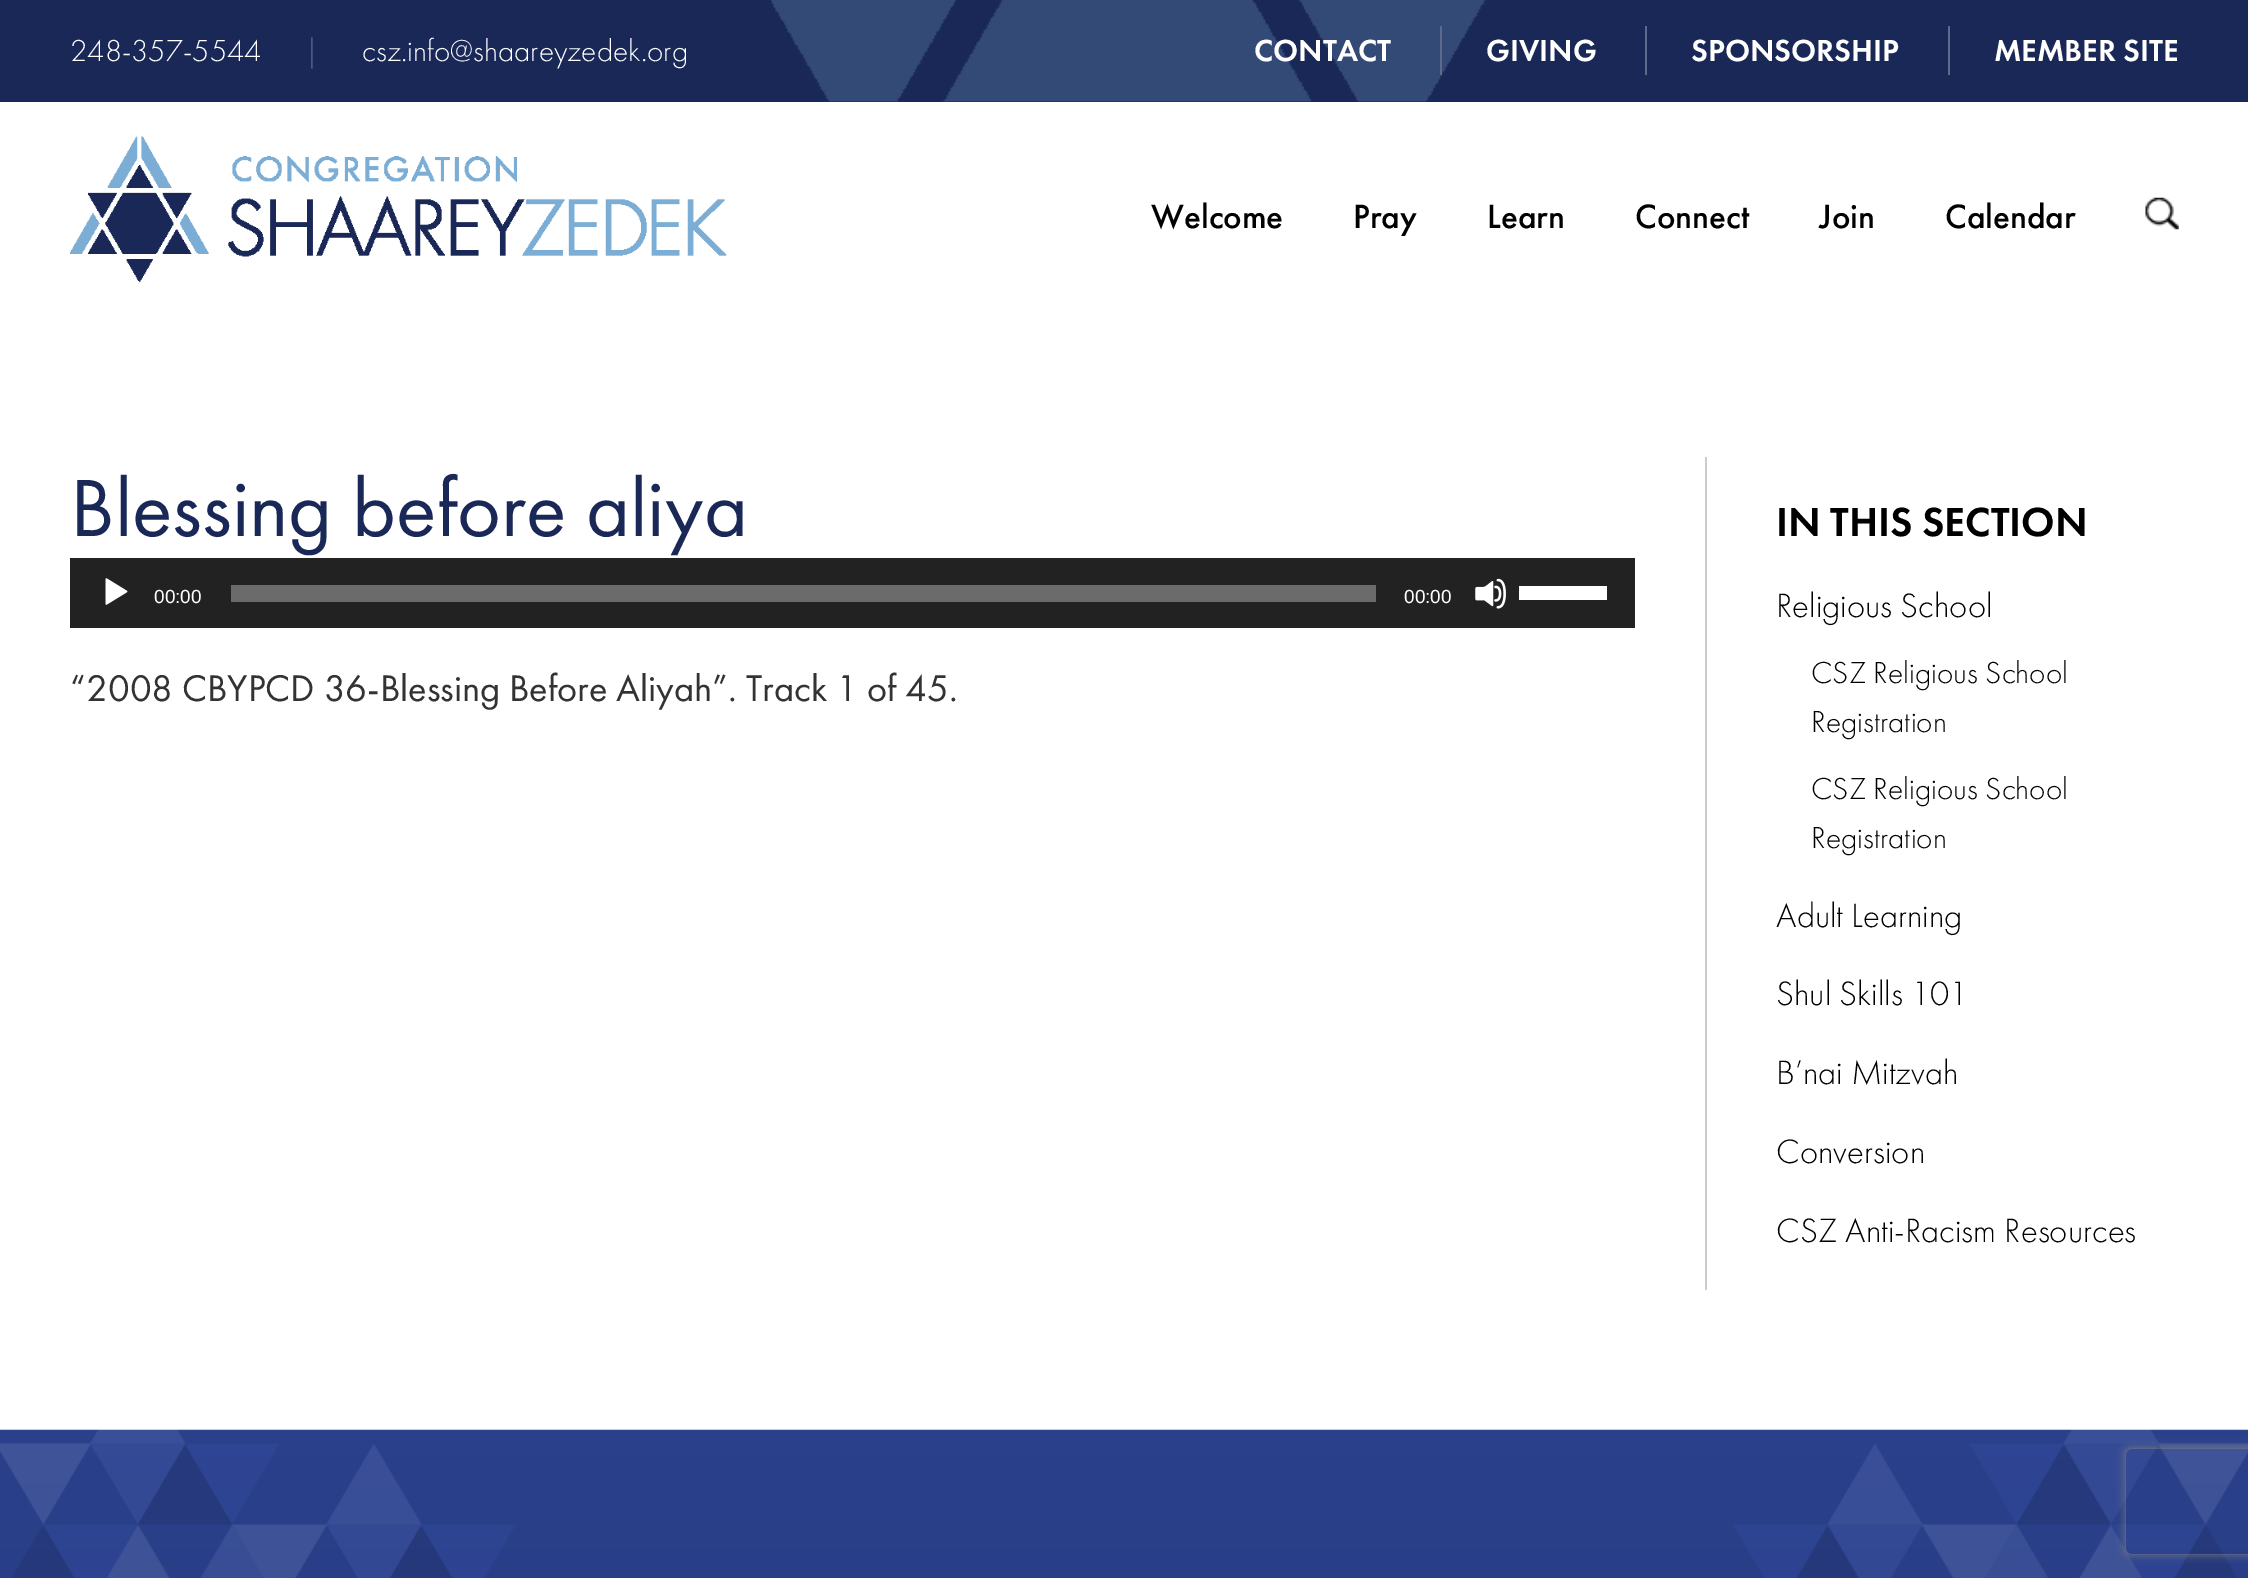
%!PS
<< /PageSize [2248 1578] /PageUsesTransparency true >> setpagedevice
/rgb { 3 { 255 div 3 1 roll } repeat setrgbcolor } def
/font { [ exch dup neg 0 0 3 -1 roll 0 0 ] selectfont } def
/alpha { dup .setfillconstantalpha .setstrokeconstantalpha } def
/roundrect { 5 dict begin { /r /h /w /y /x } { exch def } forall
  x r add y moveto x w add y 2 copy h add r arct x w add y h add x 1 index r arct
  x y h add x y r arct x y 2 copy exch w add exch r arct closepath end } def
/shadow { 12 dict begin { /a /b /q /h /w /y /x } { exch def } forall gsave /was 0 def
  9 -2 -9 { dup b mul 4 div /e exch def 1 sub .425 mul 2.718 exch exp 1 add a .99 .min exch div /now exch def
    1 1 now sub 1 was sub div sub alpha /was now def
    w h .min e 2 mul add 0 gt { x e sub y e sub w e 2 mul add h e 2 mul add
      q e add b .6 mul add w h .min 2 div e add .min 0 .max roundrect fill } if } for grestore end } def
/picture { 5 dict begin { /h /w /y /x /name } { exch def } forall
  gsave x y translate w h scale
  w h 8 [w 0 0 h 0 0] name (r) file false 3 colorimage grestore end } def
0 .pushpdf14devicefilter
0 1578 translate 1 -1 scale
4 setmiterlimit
255 255 255 rgb
0 0 2248 1578 rectfill
26 40 87 rgb
0 0 2248 102 rectfill
(img/1.rgb) 770 0 716 102 picture
[
  [1440 26 2 49 95 105 137]
  [1645 26 2 49 95 105 137]
  [1948 26 2 49 95 105 137]
] { aload pop rgb rectfill } forall
(img/2.rgb) 70 136 657 146 picture
(img/3.rgb) 2145 197 34 33 picture
34 34 34 rgb
70 558 1565 70 rectfill
(img/4.rgb) 105 578 23 27 picture
107 107 107 rgb
231 585 1145 17 rectfill
(img/5.rgb) 1475 578 31 31 picture
255 255 255 rgb
1519 586 88 14 rectfill
204 204 204 rgb
1705 457 2 833 rectfill
(img/6.rgb) 0 1429 2248 149 picture
gsave
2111 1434 moveto 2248 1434 lineto 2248 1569 lineto 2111 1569 lineto closepath 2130 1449 moveto 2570 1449 lineto 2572 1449 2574 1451 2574 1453 curveto 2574 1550 lineto 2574 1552 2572 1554 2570 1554 curveto 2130 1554 lineto 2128 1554 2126 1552 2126 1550 curveto 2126 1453 lineto 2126 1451 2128 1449 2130 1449 curveto closepath eoclip newpath
128 128 128 rgb
2126 1449 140 105 4 4.5 1 shadow
grestore
/FuturaPT-Light 31.5 font
255 255 255 rgb
70 61 moveto (248-357-5544) show
95 105 137 rgb
304 61 moveto (|) show
255 255 255 rgb
362 61 moveto (csz.info@shaareyzedek.org) show
/FuturaPT-Medium 31.5 font
[
  [(CONTACT) 1254 61]
  [(GIVING) 1486 61]
  [(SPONSORSHIP) 1691 61]
  [(MEMBER SITE) 1994 61]
] { aload pop moveto show } forall
/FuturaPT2-Medium 35 font
0 0 0 rgb
[
  [(Welcome) 1151 228]
  [(Pray) 1353 228]
  [(Learn) 1487 228]
  [(Connect) 1635 228]
  [(Join) 1819 228]
  [(Calendar) 1945 228]
] { aload pop moveto show } forall
/FuturaPT-Regular 84 font
26 40 87 rgb
70 536 moveto (Blessing before aliya) show
/LiberationSans-Regular 19 font
255 255 255 rgb
154 603 moveto (00:00) show
1404 603 moveto (00:00) show
/FuturaPT-Regular 38.5 font
51 51 51 rgb
70 701 moveto (“2008 CBYPCD 36-Blessing Before Aliyah”. Track 1 of 45.) show
/FuturaPT-Medium 42 font
0 0 0 rgb
1776 536 moveto (IN THIS SECTION) show
/FuturaPT-Light 35 font
1776 617 moveto (Religious School) show
/FuturaPT-Light 31.5 font
[
  [(CSZ Religious School) 1811 683]
  [(Registration) 1811 732]
  [(CSZ Religious School) 1811 799]
  [(Registration) 1811 848]
] { aload pop moveto show } forall
/FuturaPT-Light 35 font
[
  [(Adult Learning) 1776 927]
  [(Shul Skills 101) 1776 1005]
  [(B’nai Mitzvah) 1776 1084]
  [(Conversion) 1776 1163]
  [(CSZ Anti-Racism Resources) 1776 1242]
] { aload pop moveto show } forall
.poppdf14devicefilter showpage
